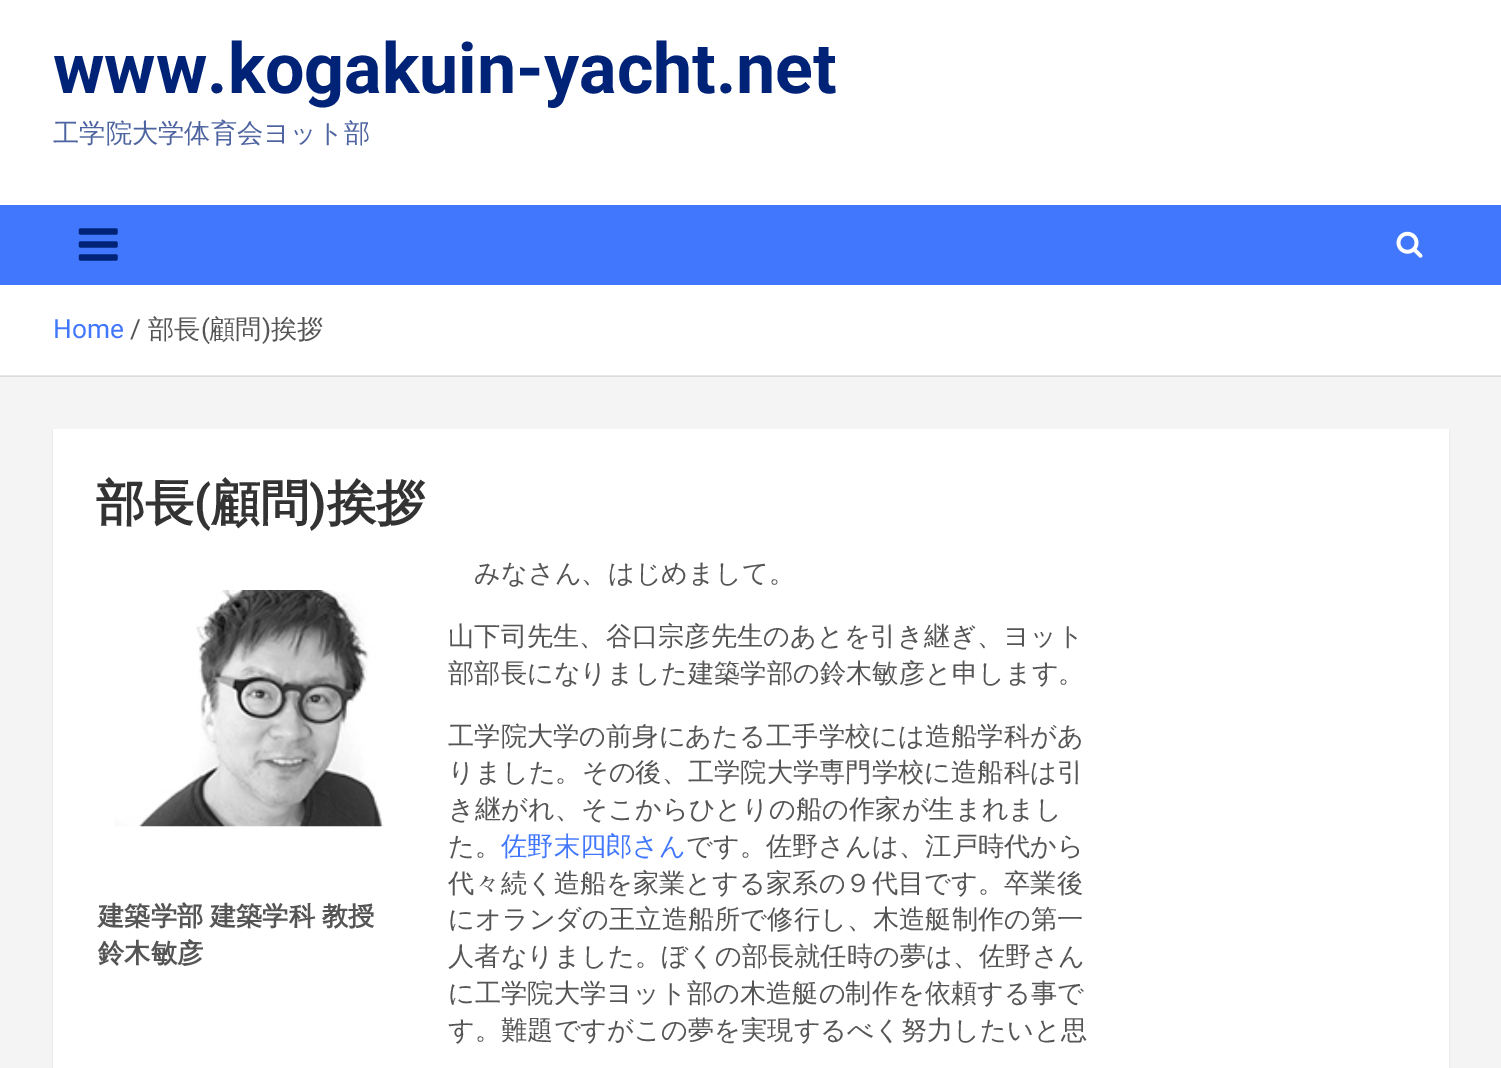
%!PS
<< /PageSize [1501 1068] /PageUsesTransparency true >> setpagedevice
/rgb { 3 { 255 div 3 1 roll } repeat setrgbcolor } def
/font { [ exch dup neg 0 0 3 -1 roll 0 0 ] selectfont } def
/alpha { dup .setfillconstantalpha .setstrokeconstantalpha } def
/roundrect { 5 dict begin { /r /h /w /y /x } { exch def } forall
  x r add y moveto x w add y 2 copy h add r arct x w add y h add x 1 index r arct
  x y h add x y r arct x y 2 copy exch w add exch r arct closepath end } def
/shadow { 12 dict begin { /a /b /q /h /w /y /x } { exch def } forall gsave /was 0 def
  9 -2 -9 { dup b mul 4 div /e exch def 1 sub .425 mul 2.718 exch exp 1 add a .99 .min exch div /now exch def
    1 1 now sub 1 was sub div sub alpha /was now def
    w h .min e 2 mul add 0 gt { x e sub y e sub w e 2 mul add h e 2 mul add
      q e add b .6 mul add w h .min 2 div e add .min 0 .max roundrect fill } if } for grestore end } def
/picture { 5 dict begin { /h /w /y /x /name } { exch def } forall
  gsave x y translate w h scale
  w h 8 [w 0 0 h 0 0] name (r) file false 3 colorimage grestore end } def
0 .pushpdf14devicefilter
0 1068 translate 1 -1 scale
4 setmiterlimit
244 244 244 rgb
0 0 1501 1068 rectfill
[
  [0 376 1501 1 220 220 220]
  [0 0 1501 205 255 255 255]
  [0 205 1501 80 65 119 252]
] { aload pop rgb rectfill } forall
(img/1.rgb) 78 228 40 33 picture
(img/2.rgb) 1396 231 27 27 picture
255 255 255 rgb
0 285 1501 90 rectfill
230 230 230 rgb
0 375 1501 1 rectfill
0 0 0 rgb
53 431 1396 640 0 1 0.1 shadow
255 255 255 rgb
53 429 1396 639 rectfill
(img/3.rgb) 114 590 270 237 picture
/Roboto-Bold 70 font
0 34 119 rgb
53 93 moveto (www.kogakuin-yacht.net) show
/WenQuanYiZenHei-Medium 26.25 font
77 100 160 rgb
53 142 moveto (工学院大学体育会ヨット部) show
/Roboto-Regular 26.25 font
65 119 252 rgb
53 338 moveto (Home) show
85 85 85 rgb
130 338 moveto (/) show
/WenQuanYiZenHei-Medium 26.25 font
148 338 moveto (部長) show
/Roboto-Regular 26.25 font
201 338 moveto (\() show
/WenQuanYiZenHei-Medium 26.25 font
209 338 moveto (顧問) show
/Roboto-Regular 26.25 font
262 338 moveto (\)) show
/WenQuanYiZenHei-Medium 26.25 font
271 338 moveto (挨拶) show
/WenQuanYiZenHei-Bold 49 font
51 51 51 rgb
96 520 moveto (部長) show
/Roboto-Bold 49 font
194 520 moveto (\() show
/WenQuanYiZenHei-Bold 49 font
211 520 moveto (顧問) show
/Roboto-Bold 49 font
309 520 moveto (\)) show
/WenQuanYiZenHei-Bold 49 font
327 520 moveto (挨拶) show
/WenQuanYiZenHei-Bold 26.25 font
85 85 85 rgb
98 925 moveto -1 0 32 (建築学部 建築学科 教授) widthshow
98 962 moveto (鈴木敏彦) show
/WenQuanYiZenHei-Medium 26.25 font
[
  [(みなさん、はじめまして。) 474 582]
  [(山下司先生、谷口宗彦先生のあとを引き継ぎ、ヨット) 448 645]
  [(部部長になりました建築学部の鈴木敏彦と申します。) 448 682]
  [(工学院大学の前身にあたる工手学校には造船学科があ) 448 745]
  [(りました。その後、工学院大学専門学校に造船科は引) 448 781]
  [(き継がれ、そこからひとりの船の作家が生まれまし) 448 818]
  [(た。) 448 855]
] { aload pop moveto show } forall
65 119 252 rgb
501 855 moveto (佐野末四郎さん) show
85 85 85 rgb
[
  [(です。佐野さんは、江戸時代から) 686 855]
  [(代々続く造船を家業とする家系の９代目です。卒業後) 448 892]
  [(にオランダの王立造船所で修行し、木造艇制作の第一) 448 928]
  [(人者なりました。ぼくの部長就任時の夢は、佐野さん) 448 965]
  [(に工学院大学ヨット部の木造艇の制作を依頼する事で) 448 1002]
  [(す。難題ですがこの夢を実現するべく努力したいと思) 448 1039]
] { aload pop moveto show } forall
.poppdf14devicefilter showpage
